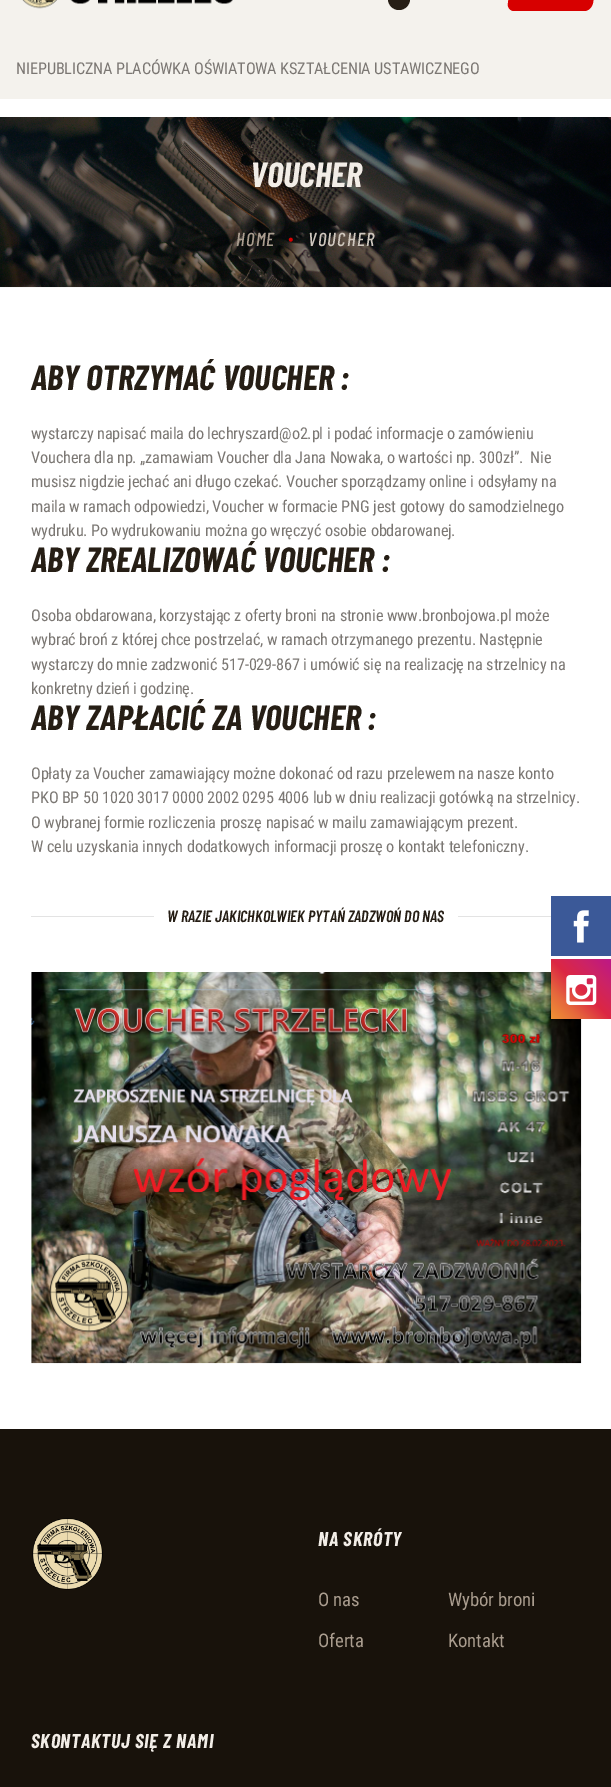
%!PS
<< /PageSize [611 1787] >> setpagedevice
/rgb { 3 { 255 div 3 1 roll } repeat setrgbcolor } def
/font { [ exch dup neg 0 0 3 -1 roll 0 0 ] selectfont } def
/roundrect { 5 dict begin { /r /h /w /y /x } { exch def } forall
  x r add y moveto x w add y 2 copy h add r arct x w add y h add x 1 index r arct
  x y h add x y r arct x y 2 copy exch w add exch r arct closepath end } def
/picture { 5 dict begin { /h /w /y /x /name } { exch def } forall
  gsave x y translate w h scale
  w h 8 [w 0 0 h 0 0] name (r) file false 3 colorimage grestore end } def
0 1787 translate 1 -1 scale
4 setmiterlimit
255 255 255 rgb
0 0 611 1787 rectfill
244 242 237 rgb
0 0 611 99 rectfill
(img/1.rgb) 22 0 211 9 picture
38 30 21 rgb
388 -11 22 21 11 roundrect fill
215 0 0 rgb
596 -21 moveto 593 3 lineto 592 7 589 11 584 11 curveto 514 11 lineto 510 11 507 7 508 3 curveto 512 -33 lineto 513 -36 516 -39 519 -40 curveto 592 -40 lineto 595 -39 597 -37 597 -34 curveto closepath fill
247 247 247 rgb
0 287 611 1 rectfill
(img/2.rgb) 0 117 611 170 picture
(img/3.rgb) 288 237 5 5 picture
227 227 227 rgb
31 916 123 1 rectfill
458 916 93 1 rectfill
(img/4.rgb) 31 972 551 392 picture
24 18 11 rgb
0 1429 611 358 rectfill
(img/5.rgb) 32 1518 71 72 picture
59 89 152 rgb
551 896 60 60 rectfill
(img/6.rgb) 573 910 16 33 picture
gsave 551 959 moveto 611 959 lineto 611 1019 lineto 551 1019 lineto closepath clip newpath
<< /ShadingType 2 /ColorSpace /DeviceRGB /Coords [551 1019 611 959] /Extend [true true] /Function << /FunctionType 3 /Domain [0 1] /Functions [<< /FunctionType 2 /Domain [0 1] /C0 [0.941 0.58 0.2] /C1 [0.902 0.408 0.235] /N 1 >> << /FunctionType 2 /Domain [0 1] /C0 [0.902 0.408 0.235] /C1 [0.863 0.153 0.263] /N 1 >> << /FunctionType 2 /Domain [0 1] /C0 [0.863 0.153 0.263] /C1 [0.8 0.137 0.4] /N 1 >> << /FunctionType 2 /Domain [0 1] /C0 [0.8 0.137 0.4] /C1 [0.737 0.094 0.533] /N 1 >>] /Bounds [0.25 0.5 0.75] /Encode [0 1 0 1 0 1 0 1] >> >> shfill grestore
(img/7.rgb) 566 975 31 30 picture
/RobotoCondensed-Regular 16.25 font
123 119 115 rgb
16 74 moveto -0.15 0 (NIEPUBLICZNA PLACÓWKA OŚWIATOWA KSZTAŁCENIA USTAWICZNEGO) ashow
/BarlowCondensed-BoldItalic 35 font
242 237 231 rgb
250 187 moveto (VOUCHER) show
/BarlowCondensed-MediumItalic 18.75 font
170 157 143 rgb
236 246 moveto 1.25 0 (HOME) ashow
207 199 190 rgb
308 246 moveto 1.25 0 (VOUCHER) ashow
/BarlowCondensed-BoldItalic 35 font
38 30 21 rgb
31 390 moveto (ABY OTRZYMAĆ VOUCHER :) show
/RobotoCondensed-Regular 16.25 font
123 119 115 rgb
31 439 moveto -0.15 0 (wystarczy napisać maila do lechryszard@o2.pl i podać informacje o zamówieniu) ashow
31 463 moveto -0.15 0 (Vouchera dla np. „zamawiam Voucher dla Jana Nowaka, o wartości np. 300zł”.  Nie) ashow
31 487 moveto -0.15 0 (musisz nigdzie jechać ani długo czekać. Voucher sporządzamy online i odsyłamy na) ashow
31 512 moveto -0.15 0 (maila w ramach odpowiedzi, Voucher w formacie PNG jest gotowy do samodzielnego) ashow
31 536 moveto -0.15 0 (wydruku. Po wydrukowaniu można go wręczyć osobie obdarowanej.) ashow
/BarlowCondensed-BoldItalic 35 font
38 30 21 rgb
31 572 moveto (ABY ZREALIZOWAĆ VOUCHER :) show
/RobotoCondensed-Regular 16.25 font
123 119 115 rgb
31 621 moveto -0.15 0 (Osoba obdarowana, korzystając z oferty broni na stronie www.bronbojowa.pl może) ashow
31 645 moveto -0.15 0 (wybrać broń z której chce postrzelać, w ramach otrzymanego prezentu. Następnie) ashow
31 670 moveto -0.15 0 (wystarczy do mnie zadzwonić 517-029-867 i umówić się na realizację na strzelnicy na) ashow
31 694 moveto -0.15 0 (konkretny dzień i godzinę.) ashow
/BarlowCondensed-BoldItalic 35 font
38 30 21 rgb
31 730 moveto (ABY ZAPŁACIĆ ZA VOUCHER :) show
/RobotoCondensed-Regular 16.25 font
123 119 115 rgb
31 779 moveto -0.15 0 (Opłaty za Voucher zamawiający możne dokonać od razu przelewem na nasze konto) ashow
31 803 moveto -0.15 0 (PKO BP 50 1020 3017 0000 2002 0295 4006 lub w dniu realizacji gotówką na strzelnicy.) ashow
31 828 moveto -0.15 0 (O wybranej formie rozliczenia proszę napisać w mailu zamawiającym prezent.) ashow
31 852 moveto -0.15 0 (W celu uzyskania innych dodatkowych informacji proszę o kontakt telefoniczny.) ashow
/BarlowCondensed-SemiBoldItalic 16.25 font
38 30 21 rgb
167 922 moveto (W RAZIE JAKICHKOLWIEK PYTAŃ ZADZWOŃ DO NAS) show
/BarlowCondensed-BoldItalic 20 font
242 237 231 rgb
318 1546 moveto 0.7 0 (NA SKRÓTY) ashow
/RobotoCondensed-Regular 18.75 font
170 157 143 rgb
318 1606 moveto -0.15 0 (O nas) ashow
448 1606 moveto -0.15 0 (Wybór broni) ashow
318 1647 moveto -0.15 0 (Oferta) ashow
448 1647 moveto -0.15 0 (Kontakt) ashow
/BarlowCondensed-BoldItalic 20 font
242 237 231 rgb
31 1748 moveto 0.7 0 (SKONTAKTUJ SIĘ Z NAMI) ashow
showpage
